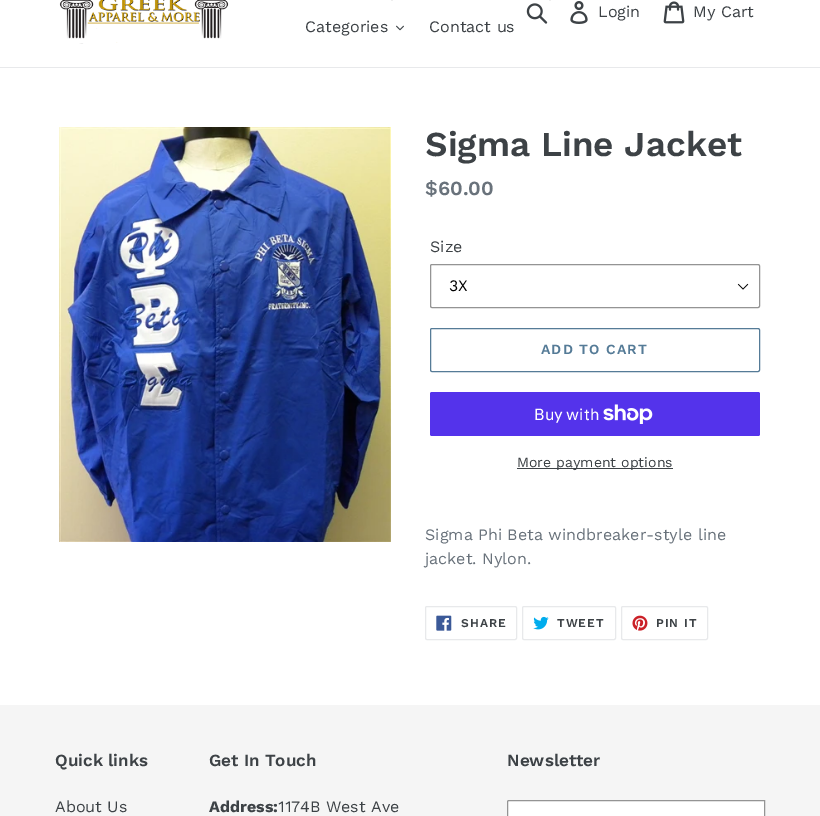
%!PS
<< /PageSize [820 816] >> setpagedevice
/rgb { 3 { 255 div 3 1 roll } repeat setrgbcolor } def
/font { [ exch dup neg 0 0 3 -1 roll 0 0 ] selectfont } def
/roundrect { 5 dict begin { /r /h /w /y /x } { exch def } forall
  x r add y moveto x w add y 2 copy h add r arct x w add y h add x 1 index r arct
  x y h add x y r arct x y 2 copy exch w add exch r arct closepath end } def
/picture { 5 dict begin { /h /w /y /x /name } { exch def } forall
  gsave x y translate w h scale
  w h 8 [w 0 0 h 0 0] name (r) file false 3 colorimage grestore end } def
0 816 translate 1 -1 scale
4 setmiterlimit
255 255 255 rgb
0 0 820 816 rectfill
232 233 235 rgb
0 67 820 1 rectfill
(img/1.rgb) 59 0 170 44 picture
(img/2.rgb) 526 3 22 21 picture
(img/3.rgb) 570 1 18 23 picture
(img/4.rgb) 663 1 22 23 picture
238 238 238 rgb
391 0 2 1 rectfill
549 0 2 1 rectfill
(img/5.rgb) 396 25 8 6 picture
(img/6.rgb) 59 127 332 415 picture
(img/7.rgb) 737 283 12 7 picture
148 148 148 rgb
430.5 264.5 329 43 1.5 roundrect stroke
85 123 151 rgb
430.5 328.5 329 43 1.5 roundrect stroke
84 51 235 rgb
430 392 330 44 2 roundrect fill
(img/8.rgb) 603 404 50 20 picture
61 66 70 rgb
517 468 156 1 rectfill
232 233 235 rgb
425.5 606.5 91 33 1.5 roundrect stroke
(img/9.rgb) 436 615 16 16 picture
522.5 606.5 93 33 1.5 roundrect stroke
(img/10.rgb) 533 616 16 14 picture
621.5 606.5 86 33 1.5 roundrect stroke
(img/11.rgb) 632 615 16 16 picture
245 245 245 rgb
0 705 820 111 rectfill
255 255 255 rgb
509 800.5 moveto 764.5 800.5 lineto 764.5 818.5 lineto 509 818.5 lineto 508 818.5 507.5 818 507.5 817 curveto 507.5 802 lineto 507.5 801 508 800.5 509 800.5 curveto closepath gsave fill grestore
148 148 148 rgb
stroke
/WorkSans-Regular 16 font
61 66 70 rgb
[
  [(Login) 598 17]
  [(My Cart) 693 17]
  [(Categories) 305 32]
  [(Contact us) 429 32]
] { aload pop moveto show } forall
/WorkSans-SemiBold 35 font
425 156 moveto (Sigma Line Jacket) show
/WorkSans-SemiBold 20 font
105 114 123 rgb
425 195 moveto ($60.00) show
/WorkSans-Regular 16 font
61 66 70 rgb
430 252 moveto (Size) show
0 0 0 rgb
449 291 moveto (3X) show
/WorkSans-SemiBold 14 font
85 123 151 rgb
541 354 moveto 1.1 0 (ADD TO CART) ashow
/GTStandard-Regular 16 font
255 255 255 rgb
534 420 moveto (Buy with) show
/WorkSans-Regular 14 font
61 66 70 rgb
517 467 moveto (More payment options) show
/WorkSans-Regular 16 font
105 114 123 rgb
425 540 moveto (Sigma Phi Beta windbreaker-style line) show
425 564 moveto (jacket. Nylon.) show
/WorkSans-SemiBold 12 font
61 66 70 rgb
461 627 moveto 1 0 (SHARE) ashow
557 627 moveto 1 0 (TWEET) ashow
656 627 moveto 1 0 (PIN IT) ashow
/WorkSans-SemiBold 17 font
55 766 moveto (Quick links) show
/WorkSans-Regular 16 font
55 812 moveto (About Us) show
/WorkSans-SemiBold 17 font
209 766 moveto (Get In Touch) show
/WorkSans-Bold 16 font
209 812 moveto (Address:) show
/WorkSans-Regular 16 font
278 812 moveto (1174B West Ave) show
/WorkSans-SemiBold 17 font
507 766 moveto (Newsletter) show
showpage
